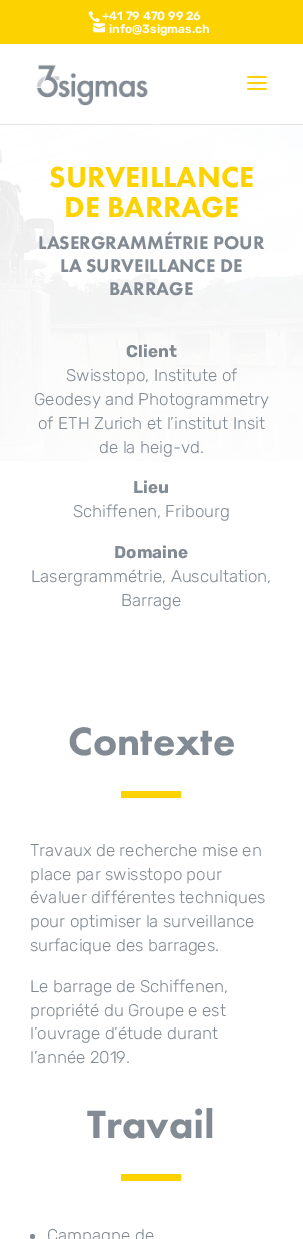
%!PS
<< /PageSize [303 1239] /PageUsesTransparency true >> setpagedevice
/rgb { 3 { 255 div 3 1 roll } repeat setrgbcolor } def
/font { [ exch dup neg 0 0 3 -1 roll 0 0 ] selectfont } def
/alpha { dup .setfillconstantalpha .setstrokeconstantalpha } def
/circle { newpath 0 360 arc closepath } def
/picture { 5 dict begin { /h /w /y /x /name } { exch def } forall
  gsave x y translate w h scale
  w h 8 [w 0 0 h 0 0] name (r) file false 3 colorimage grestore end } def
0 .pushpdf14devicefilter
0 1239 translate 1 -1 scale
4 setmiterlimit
255 255 255 rgb
0 0 303 1239 rectfill
252 210 0 rgb
0 0 303 44 rectfill
(img/1.rgb) 88 11 12 12 picture
(img/2.rgb) 93 23 12 10 picture
(img/5.rgb) 0 124 303 337 picture
0.1 alpha
0 0 0 rgb
0 124 303 1 rectfill
1 alpha
(img/3.rgb) 36 64 112 42 picture
(img/4.rgb) 247 76 20 14 picture
252 210 0 rgb
121 791 60 7 rectfill
121 1174 60 7 rectfill
130 138 147 rgb
32.5 1236.5 2.5 circle fill
/Rubik-SemiBold 12 font
255 255 255 rgb
102 20 moveto (+41 79 470 99 26) show
109 33 moveto (info@3sigmas.ch) show
/FuturaPT-Black 30 font
252 210 0 rgb
49 187 moveto (SURVEILLANCE) show
64 217 moveto (DE BARRAGE) show
/FuturaPT-Black 19 font
130 138 147 rgb
[
  [(LASERGRAMMÉTRIE POUR) 38 249]
  [(LA SURVEILLANCE DE) 60 272]
  [(BARRAGE) 109 295]
] { aload pop moveto show } forall
/Rubik-Light 17 font
126 357 moveto (Client) show
/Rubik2-Light 17 font
[
  [(Swisstopo, Institute of) 66 381]
  [(Geodesy and Photogrammetry) 34 405]
  [(of ETH Zurich et l’institut Insit) 38 429]
  [(de la heig-vd.) 99 453]
] { aload pop moveto show } forall
/Rubik-Light 17 font
133 493 moveto (Lieu) show
/Rubik2-Light 17 font
73 517 moveto (Schiffenen, Fribourg) show
/Rubik-Light 17 font
114 558 moveto (Domaine) show
/Rubik2-Light 17 font
31 582 moveto (Lasergrammétrie, Auscultation,) show
121 606 moveto (Barrage) show
/FuturaPT-Black 41 font
68 755 moveto (Contexte) show
/Rubik2-Light 17 font
[
  [(Travaux de recherche mise en) 30 856]
  [(place par swisstopo pour) 30 880]
  [(évaluer différentes techniques) 30 903]
  [(pour optimiser la surveillance) 30 927]
  [(surfacique des barrages.) 30 951]
  [(Le barrage de Schiffenen,) 30 992]
  [(propriété du Groupe e est) 30 1016]
  [(l’ouvrage d’étude durant) 30 1039]
  [(l’année 2019.) 30 1063]
] { aload pop moveto show } forall
/FuturaPT-Black 41 font
87 1138 moveto (Travail) show
/Rubik2-Light 17 font
47 1241 moveto (Campagne de) show
.poppdf14devicefilter showpage
